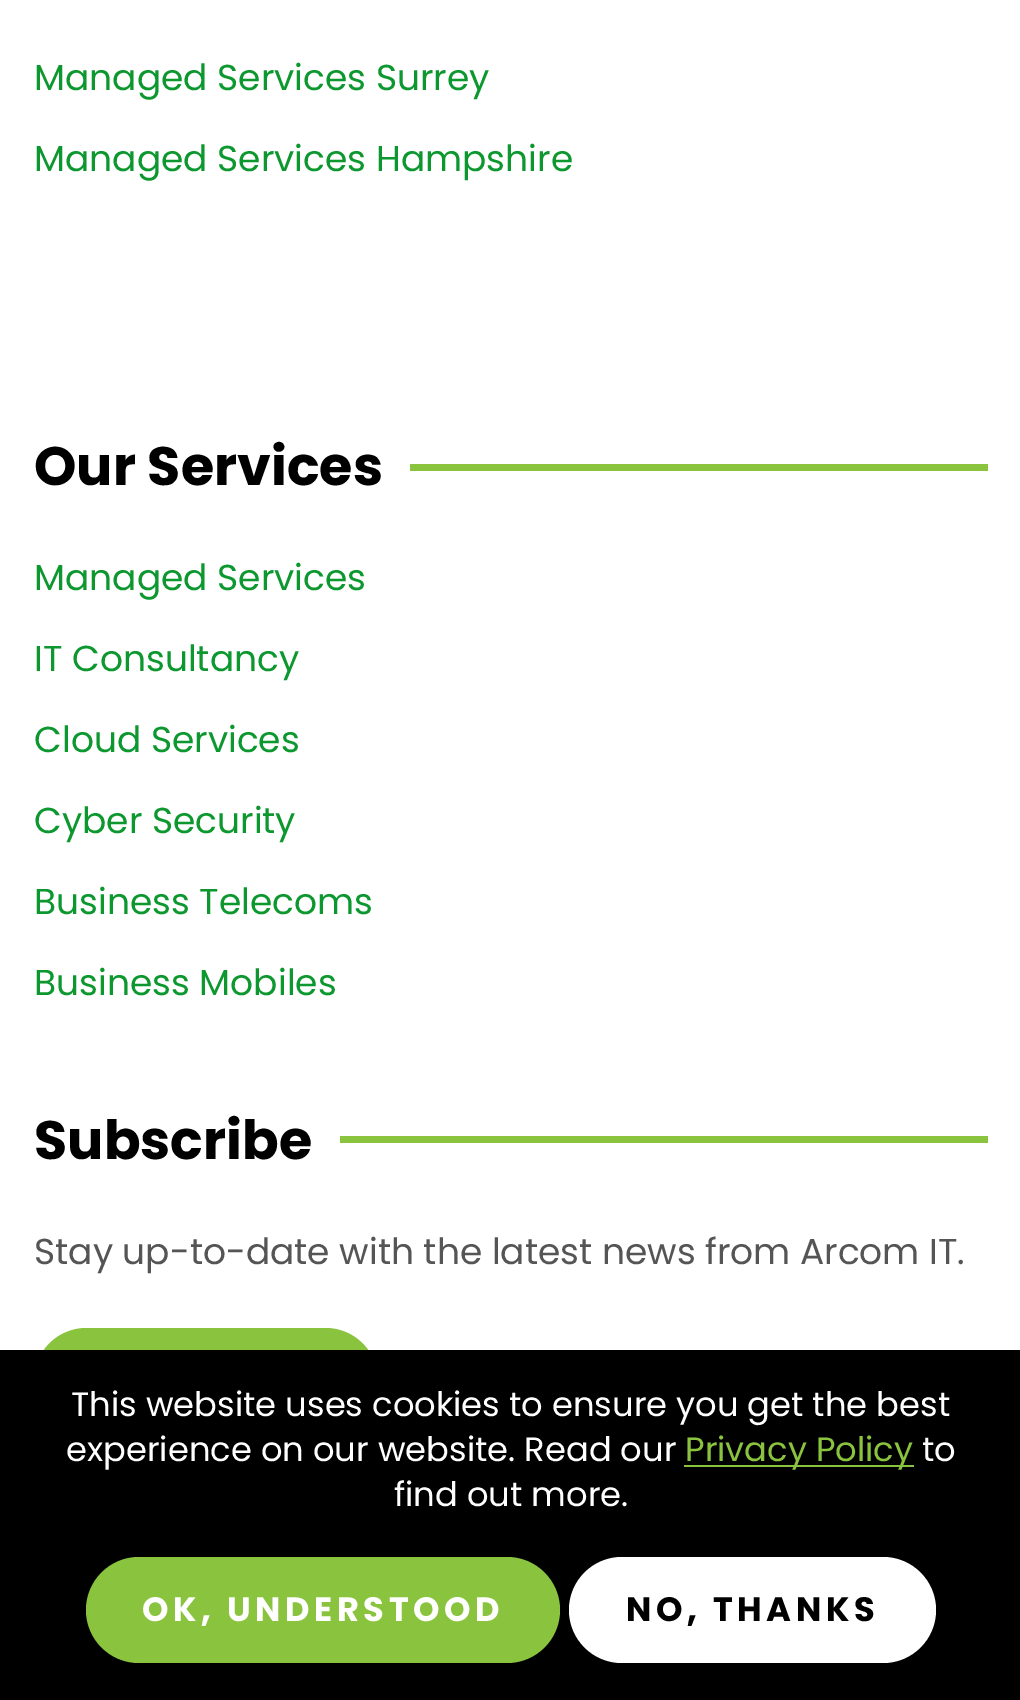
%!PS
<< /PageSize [1020 1700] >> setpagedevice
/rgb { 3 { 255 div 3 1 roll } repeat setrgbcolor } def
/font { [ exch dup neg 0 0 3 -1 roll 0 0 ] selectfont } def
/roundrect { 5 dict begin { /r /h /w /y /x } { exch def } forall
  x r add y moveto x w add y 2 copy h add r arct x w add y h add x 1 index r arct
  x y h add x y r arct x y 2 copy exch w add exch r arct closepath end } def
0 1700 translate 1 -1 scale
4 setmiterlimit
255 255 255 rgb
0 0 1020 1700 rectfill
138 196 63 rgb
410 464 578 7 rectfill
340 1136 648 7 rectfill
34 1328 344 105 52.5 roundrect fill
0 0 0 rgb
0 1350 1020 350 rectfill
138 196 63 rgb
684 1465 230 2 rectfill
86 1557 474 106 53 roundrect fill
255 255 255 rgb
569 1557 367 106 53 roundrect fill
/Poppins-Regular 36 font
12 151 47 rgb
34 90 moveto (Managed Services Surrey) show
34 171 moveto (Managed Services Hampshire) show
/Poppins-Bold 54 font
0 0 0 rgb
34 485 moveto (Our Services) show
/Poppins-Regular 36 font
12 151 47 rgb
[
  [(Managed Services) 34 590]
  [(IT Consultancy) 34 671]
  [(Cloud Services) 34 752]
  [(Cyber Security) 34 833]
  [(Business Telecoms) 34 914]
  [(Business Mobiles) 34 995]
] { aload pop moveto show } forall
/Poppins-Bold 54 font
0 0 0 rgb
34 1159 moveto (Subscribe) show
/Poppins-Regular 36 font
85 85 85 rgb
34 1264 moveto (Stay up-to-date with the latest news from Arcom IT.) show
/Poppins-Regular 33.75 font
255 255 255 rgb
71 1416 moveto (This website uses cookies to ensure you get the best) show
66 1461 moveto (experience on our website. Read our) show
138 196 63 rgb
685 1461 moveto (Privacy Policy) show
255 255 255 rgb
922 1461 moveto (to) show
394 1506 moveto (find out more.) show
/Poppins-Bold 33.75 font
142 1621 moveto 4.5 0 (OK, UNDERSTOOD) ashow
0 0 0 rgb
626 1621 moveto 4.5 0 (NO, THANKS) ashow
showpage
